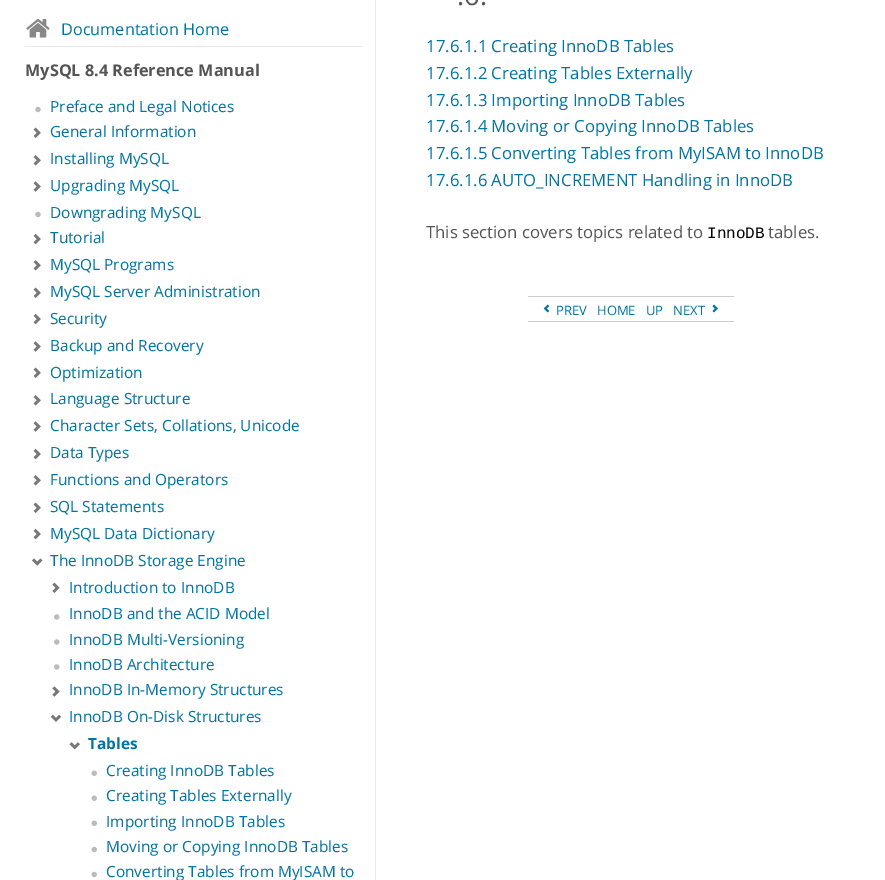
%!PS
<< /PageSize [885 880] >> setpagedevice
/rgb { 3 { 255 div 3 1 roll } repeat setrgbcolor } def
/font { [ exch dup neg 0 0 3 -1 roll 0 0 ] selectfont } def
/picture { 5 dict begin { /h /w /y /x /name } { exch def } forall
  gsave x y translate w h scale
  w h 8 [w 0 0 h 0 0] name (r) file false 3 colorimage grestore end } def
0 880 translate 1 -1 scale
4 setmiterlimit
255 255 255 rgb
0 0 885 880 rectfill
233 234 235 rgb
375 0 1 880 rectfill
(img/1.rgb) 26 19 24 19 picture
25 46 338 1 rectfill
(img/2.rgb) 35 106 6 7 picture
(img/3.rgb) 33 127 8 11 picture
(img/4.rgb) 33 155 8 11 picture
(img/5.rgb) 33 181 8 11 picture
(img/2.rgb) 35 211 6 7 picture
(img/6.rgb) 33 233 8 12 picture
(img/4.rgb) 33 260 8 11 picture
(img/3.rgb) 33 287 8 11 picture
(img/6.rgb) 33 313 8 12 picture
(img/5.rgb) 33 341 8 11 picture
(img/3.rgb) 33 367 8 11 picture
(img/4.rgb) 33 395 8 11 picture
(img/5.rgb) 33 421 8 11 picture
(img/6.rgb) 33 448 8 12 picture
(img/4.rgb) 33 475 8 11 picture
(img/3.rgb) 33 502 8 11 picture
(img/6.rgb) 33 528 8 12 picture
(img/7.rgb) 32 558 11 8 picture
(img/8.rgb) 52 582 8 11 picture
(img/9.rgb) 54 614 6 6 picture
(img/9.rgb) 54 639 6 6 picture
(img/9.rgb) 54 664 6 6 picture
(img/10.rgb) 52 686 8 11 picture
(img/11.rgb) 50 714 12 8 picture
(img/12.rgb) 69 742 11 8 picture
(img/13.rgb) 91 770 6 6 picture
(img/13.rgb) 91 795 6 6 picture
(img/13.rgb) 91 820 6 6 picture
(img/14.rgb) 91 846 6 7 picture
(img/14.rgb) 91 871 6 7 picture
204 204 204 rgb
528 296 206 1 rectfill
528 321 206 1 rectfill
(img/15.rgb) 543 304 7 9 picture
(img/16.rgb) 712 304 6 9 picture
/OpenSans-Regular 16.25 font
0 116 163 rgb
61 35 moveto (Documentation Home) show
/OpenSans-Bold 16.25 font
85 85 85 rgb
25 76 moveto (MySQL 8.4 Reference Manual) show
/OpenSans-Regular 15.4 font
0 116 163 rgb
[
  [(Preface and Legal Notices) 50 112]
  [(General Information) 50 137]
  [(Installing MySQL) 50 164]
  [(Upgrading MySQL) 50 191]
  [(Downgrading MySQL) 50 218]
  [(Tutorial) 50 243]
  [(MySQL Programs) 50 270]
  [(MySQL Server Administration) 50 297]
  [(Security) 50 324]
  [(Backup and Recovery) 50 351]
  [(Optimization) 50 378]
  [(Language Structure) 50 404]
  [(Character Sets, Collations, Unicode) 50 431]
  [(Data Types) 50 458]
  [(Functions and Operators) 50 485]
  [(SQL Statements) 50 512]
  [(MySQL Data Dictionary) 50 539]
  [(The InnoDB Storage Engine) 50 566]
  [(Introduction to InnoDB) 69 593]
  [(InnoDB and the ACID Model) 69 619]
  [(InnoDB Multi-Versioning) 69 645]
  [(InnoDB Architecture) 69 670]
  [(InnoDB In-Memory Structures) 69 695]
  [(InnoDB On-Disk Structures) 69 722]
] { aload pop moveto show } forall
/OpenSans-Bold 15.4 font
88 749 moveto (Tables) show
/OpenSans-Regular 15.4 font
[
  [(Creating InnoDB Tables) 106 776]
  [(Creating Tables Externally) 106 801]
  [(Importing InnoDB Tables) 106 827]
  [(Moving or Copying InnoDB Tables) 106 852]
  [(Converting Tables from MyISAM to) 106 877]
] { aload pop moveto show } forall
/OpenSans-Regular 27 font
85 85 85 rgb
457 5 moveto (.6.) show
/OpenSans-Regular 16.7 font
0 116 163 rgb
[
  [(17.6.1.1 Creating InnoDB Tables) 426 52]
  [(17.6.1.2 Creating Tables Externally) 426 79]
  [(17.6.1.3 Importing InnoDB Tables) 426 106]
  [(17.6.1.4 Moving or Copying InnoDB Tables) 426 132]
  [(17.6.1.5 Converting Tables from MyISAM to InnoDB) 426 159]
  [(17.6.1.6 AUTO_INCREMENT Handling in InnoDB) 426 186]
] { aload pop moveto show } forall
85 85 85 rgb
426 238 moveto (This section covers topics related to) show
/LiberationMono-Regular 16 font
0 0 0 rgb
707 238 moveto (InnoDB) show
/OpenSans-Regular 16.7 font
85 85 85 rgb
768 238 moveto (tables.) show
/OpenSans-Regular 13 font
0 116 163 rgb
[
  [(PREV) 556 315]
  [(HOME) 597 315]
  [(UP) 646 315]
  [(NEXT) 673 315]
] { aload pop moveto show } forall
showpage
